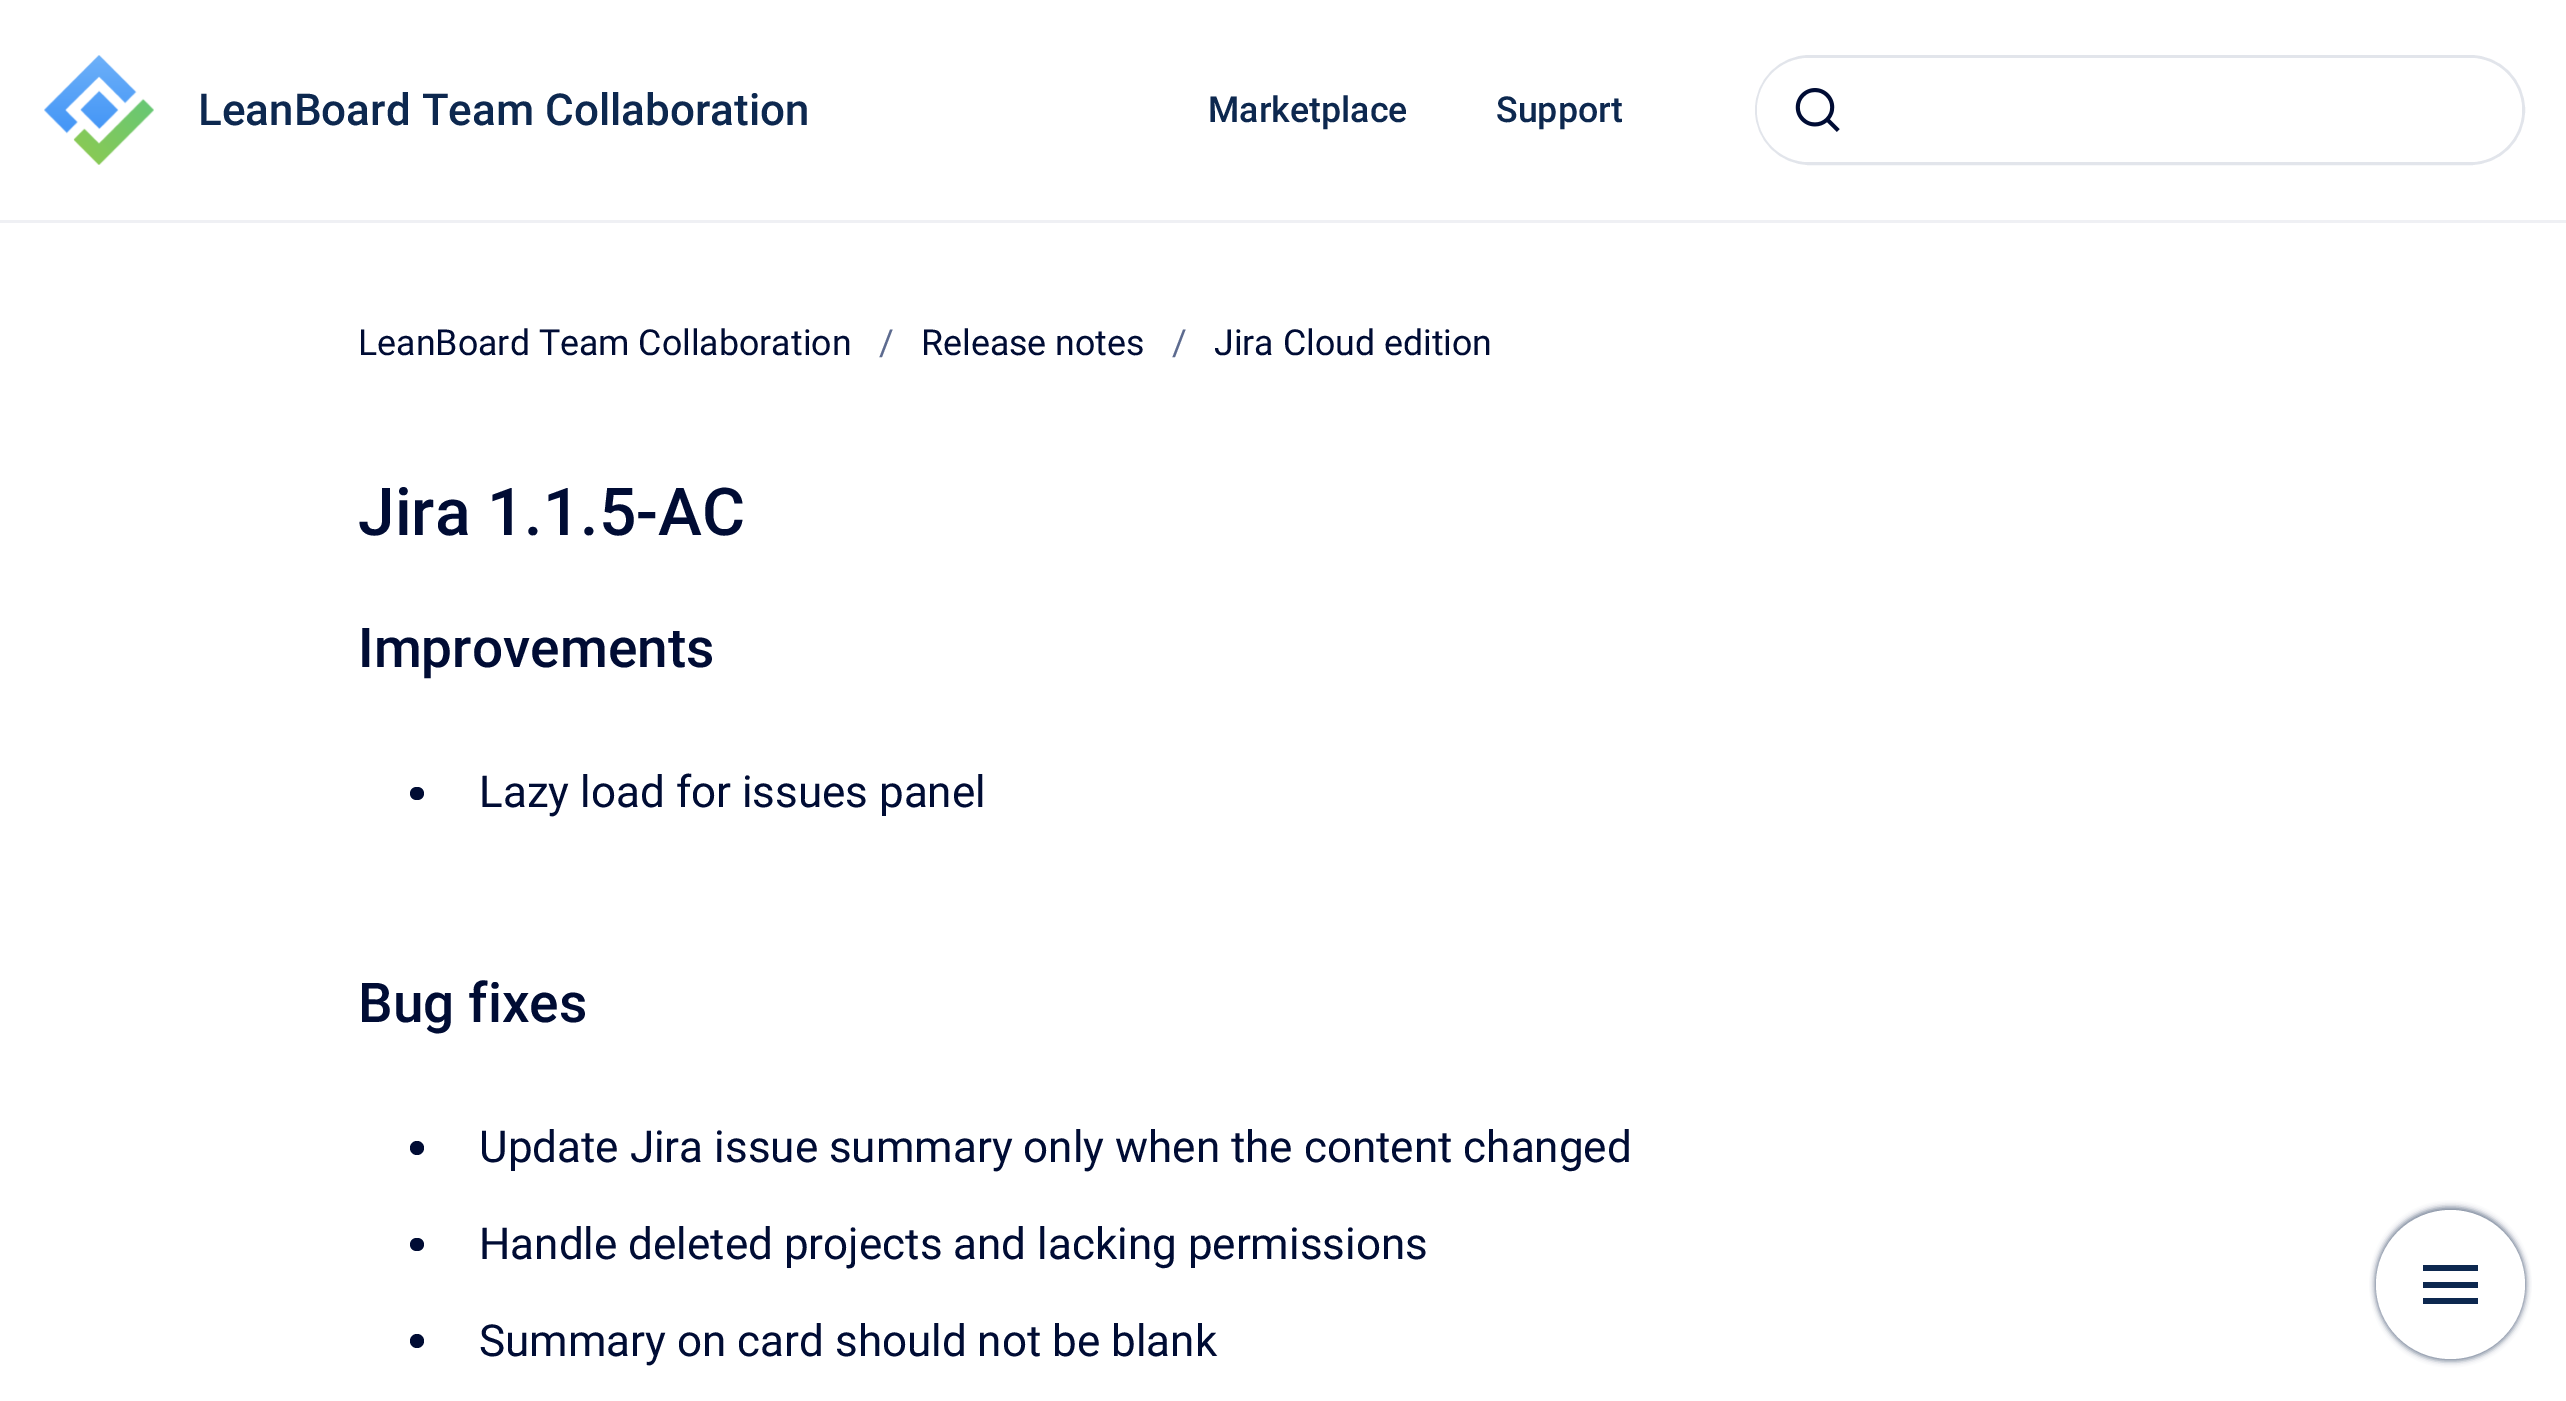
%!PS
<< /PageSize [2566 1401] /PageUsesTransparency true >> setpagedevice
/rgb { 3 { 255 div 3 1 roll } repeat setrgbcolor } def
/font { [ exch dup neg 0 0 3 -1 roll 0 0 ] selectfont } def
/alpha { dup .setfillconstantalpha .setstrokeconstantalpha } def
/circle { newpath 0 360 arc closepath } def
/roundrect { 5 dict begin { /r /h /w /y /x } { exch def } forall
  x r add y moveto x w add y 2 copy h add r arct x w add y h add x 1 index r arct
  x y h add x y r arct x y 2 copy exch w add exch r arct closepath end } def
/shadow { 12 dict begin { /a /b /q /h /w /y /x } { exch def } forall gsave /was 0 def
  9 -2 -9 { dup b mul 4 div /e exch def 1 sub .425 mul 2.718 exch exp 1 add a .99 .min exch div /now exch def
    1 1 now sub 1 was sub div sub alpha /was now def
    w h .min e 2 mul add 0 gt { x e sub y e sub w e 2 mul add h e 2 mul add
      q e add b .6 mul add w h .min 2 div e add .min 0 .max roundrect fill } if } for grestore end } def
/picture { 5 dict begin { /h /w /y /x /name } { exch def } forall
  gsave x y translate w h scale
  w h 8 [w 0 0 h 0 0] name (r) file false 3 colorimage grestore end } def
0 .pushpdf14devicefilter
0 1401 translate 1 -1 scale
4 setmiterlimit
255 255 255 rgb
0 0 2566 1401 rectfill
239 240 244 rgb
0 220 2566 3 rectfill
(img/1.rgb) 44 55 110 110 picture
226 229 235 rgb
3 setlinewidth
1756.5 56.5 767 107 53.5 roundrect stroke
255 255 255 rgb
1757 58 765 104 52 roundrect fill
(img/2.rgb) 1795 88 45 44 picture
0 12 52 rgb
410 787 14 13 6.5 roundrect fill
417 1148 7 circle fill
410 1238 14 13 6.5 roundrect fill
417 1341 7 circle fill
122 134 154 rgb
2376 1207 149 149 74.5 3 1 shadow
2376 1213 149 148 74 3 1 shadow
255 255 255 rgb
2450.5 1284.5 74.5 circle fill
[
  [2423 1265 55 6 13 40 79]
  [2423 1282 55 6 13 40 79]
  [2423 1298 55 6 13 40 79]
] { aload pop rgb rectfill } forall
/Roboto-Medium 44 font
198 125 moveto (LeanBoard Team Collaboration) show
/Roboto-Medium 35.75 font
1208 122 moveto (Marketplace) show
1496 122 moveto (Support) show
/Roboto-Regular 35.75 font
0 12 52 rgb
358 355 moveto (LeanBoard Team Collaboration) show
93 107 143 rgb
879 355 moveto (/) show
0 12 52 rgb
921 355 moveto (Release notes) show
93 107 143 rgb
1172 355 moveto (/) show
0 12 52 rgb
1214 355 moveto (Jira Cloud edition) show
/Roboto-Medium 66 font
358 535 moveto (Jira 1.1.5-AC) show
/Roboto-Medium 55 font
358 667 moveto (Improvements) show
/Roboto-Regular 44 font
479 807 moveto (Lazy load for issues panel) show
/Roboto-Medium 55 font
358 1022 moveto (Bug fixes) show
/Roboto-Regular 44 font
[
  [(Update Jira issue summary only when the content changed) 479 1162]
  [(Handle deleted projects and lacking permissions) 479 1259]
  [(Summary on card should not be blank) 479 1356]
] { aload pop moveto show } forall
.poppdf14devicefilter showpage
